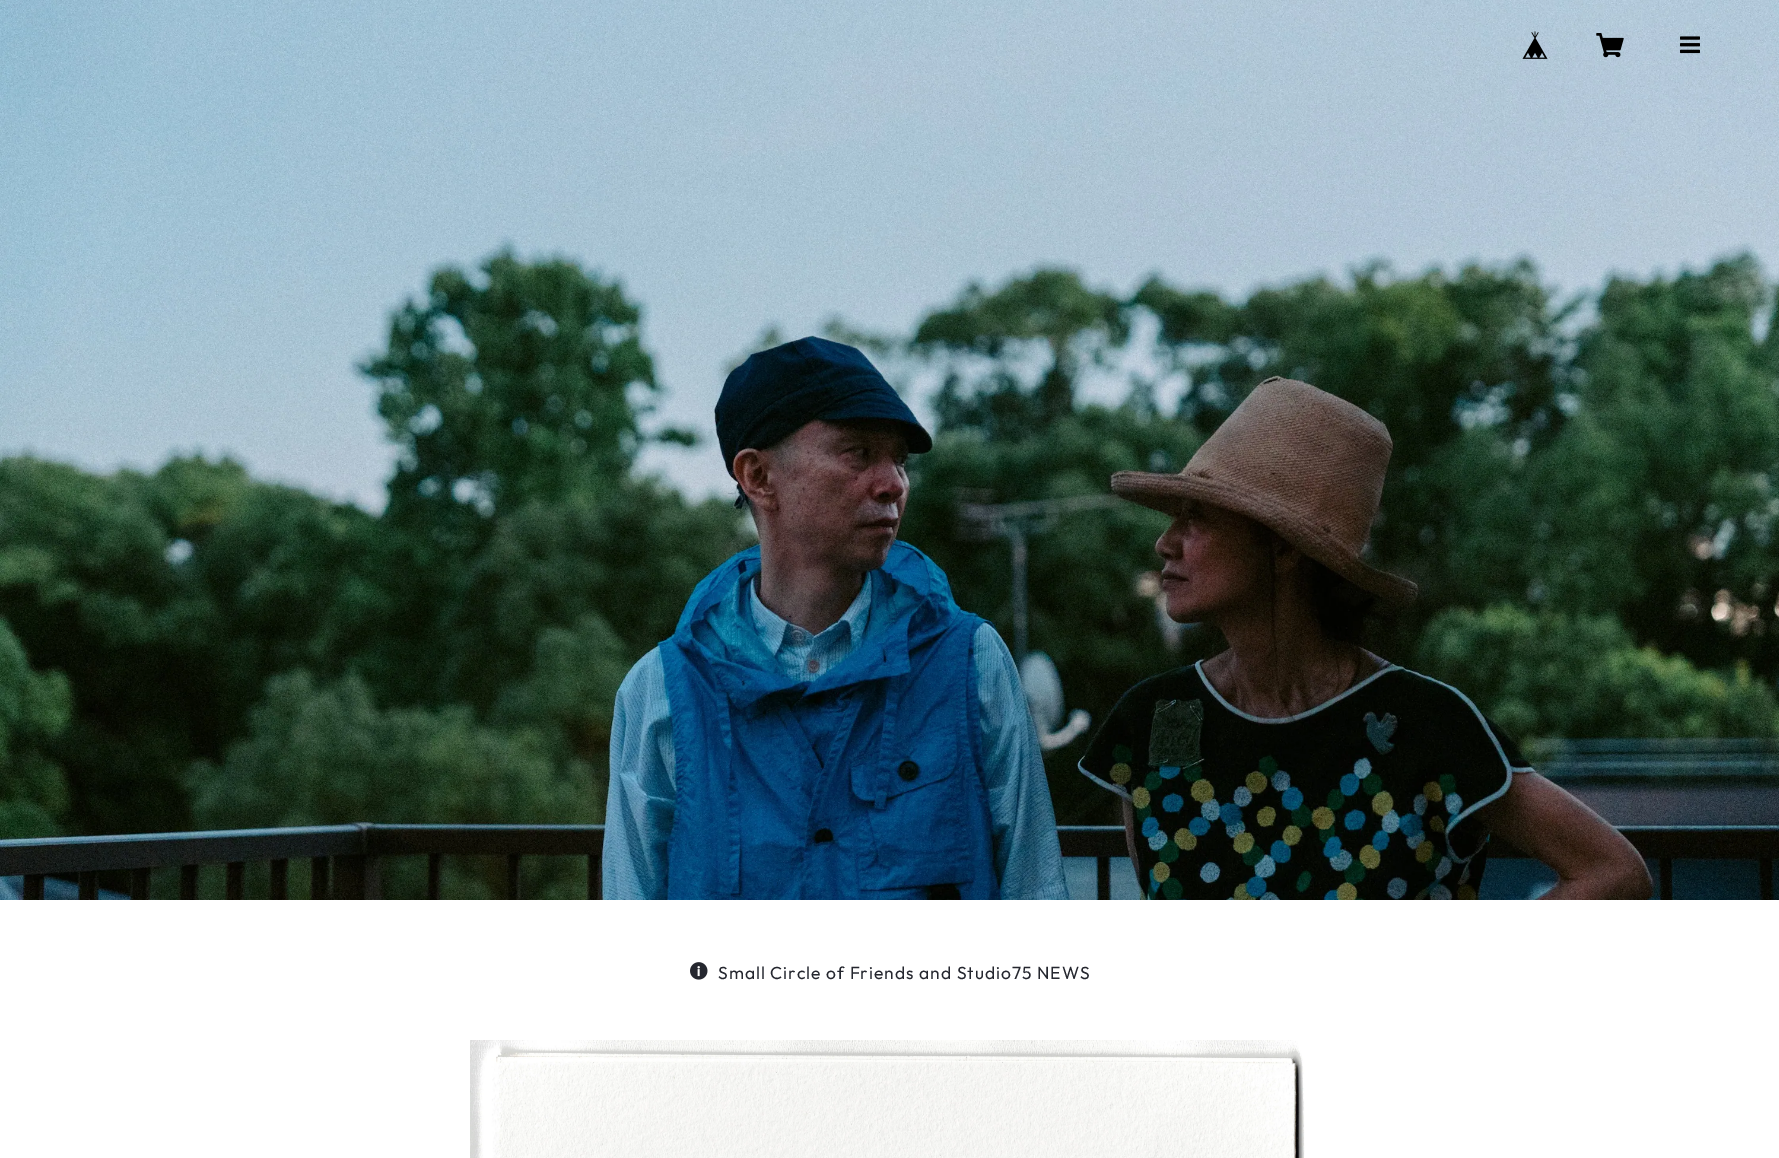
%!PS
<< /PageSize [1779 1158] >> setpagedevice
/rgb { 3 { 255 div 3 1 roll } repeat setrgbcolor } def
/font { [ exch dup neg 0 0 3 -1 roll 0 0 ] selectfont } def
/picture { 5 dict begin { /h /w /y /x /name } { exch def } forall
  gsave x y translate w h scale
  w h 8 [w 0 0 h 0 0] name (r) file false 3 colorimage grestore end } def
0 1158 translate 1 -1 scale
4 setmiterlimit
255 255 255 rgb
0 0 1779 1158 rectfill
(img/4.rgb) 0 0 1779 900 picture
(img/1.rgb) 1522 31 26 28 picture
(img/2.rgb) 1596 33 28 25 picture
(img/3.rgb) 1680 36 20 18 picture
(img/5.rgb) 690 962 18 18 picture
(img/6.rgb) 470 1040 835 118 picture
/Outfit-Regular 17.5 font
37 39 47 rgb
718 979 moveto 1 0 (Small Circle of Friends and Studio75 NEWS) ashow
showpage
